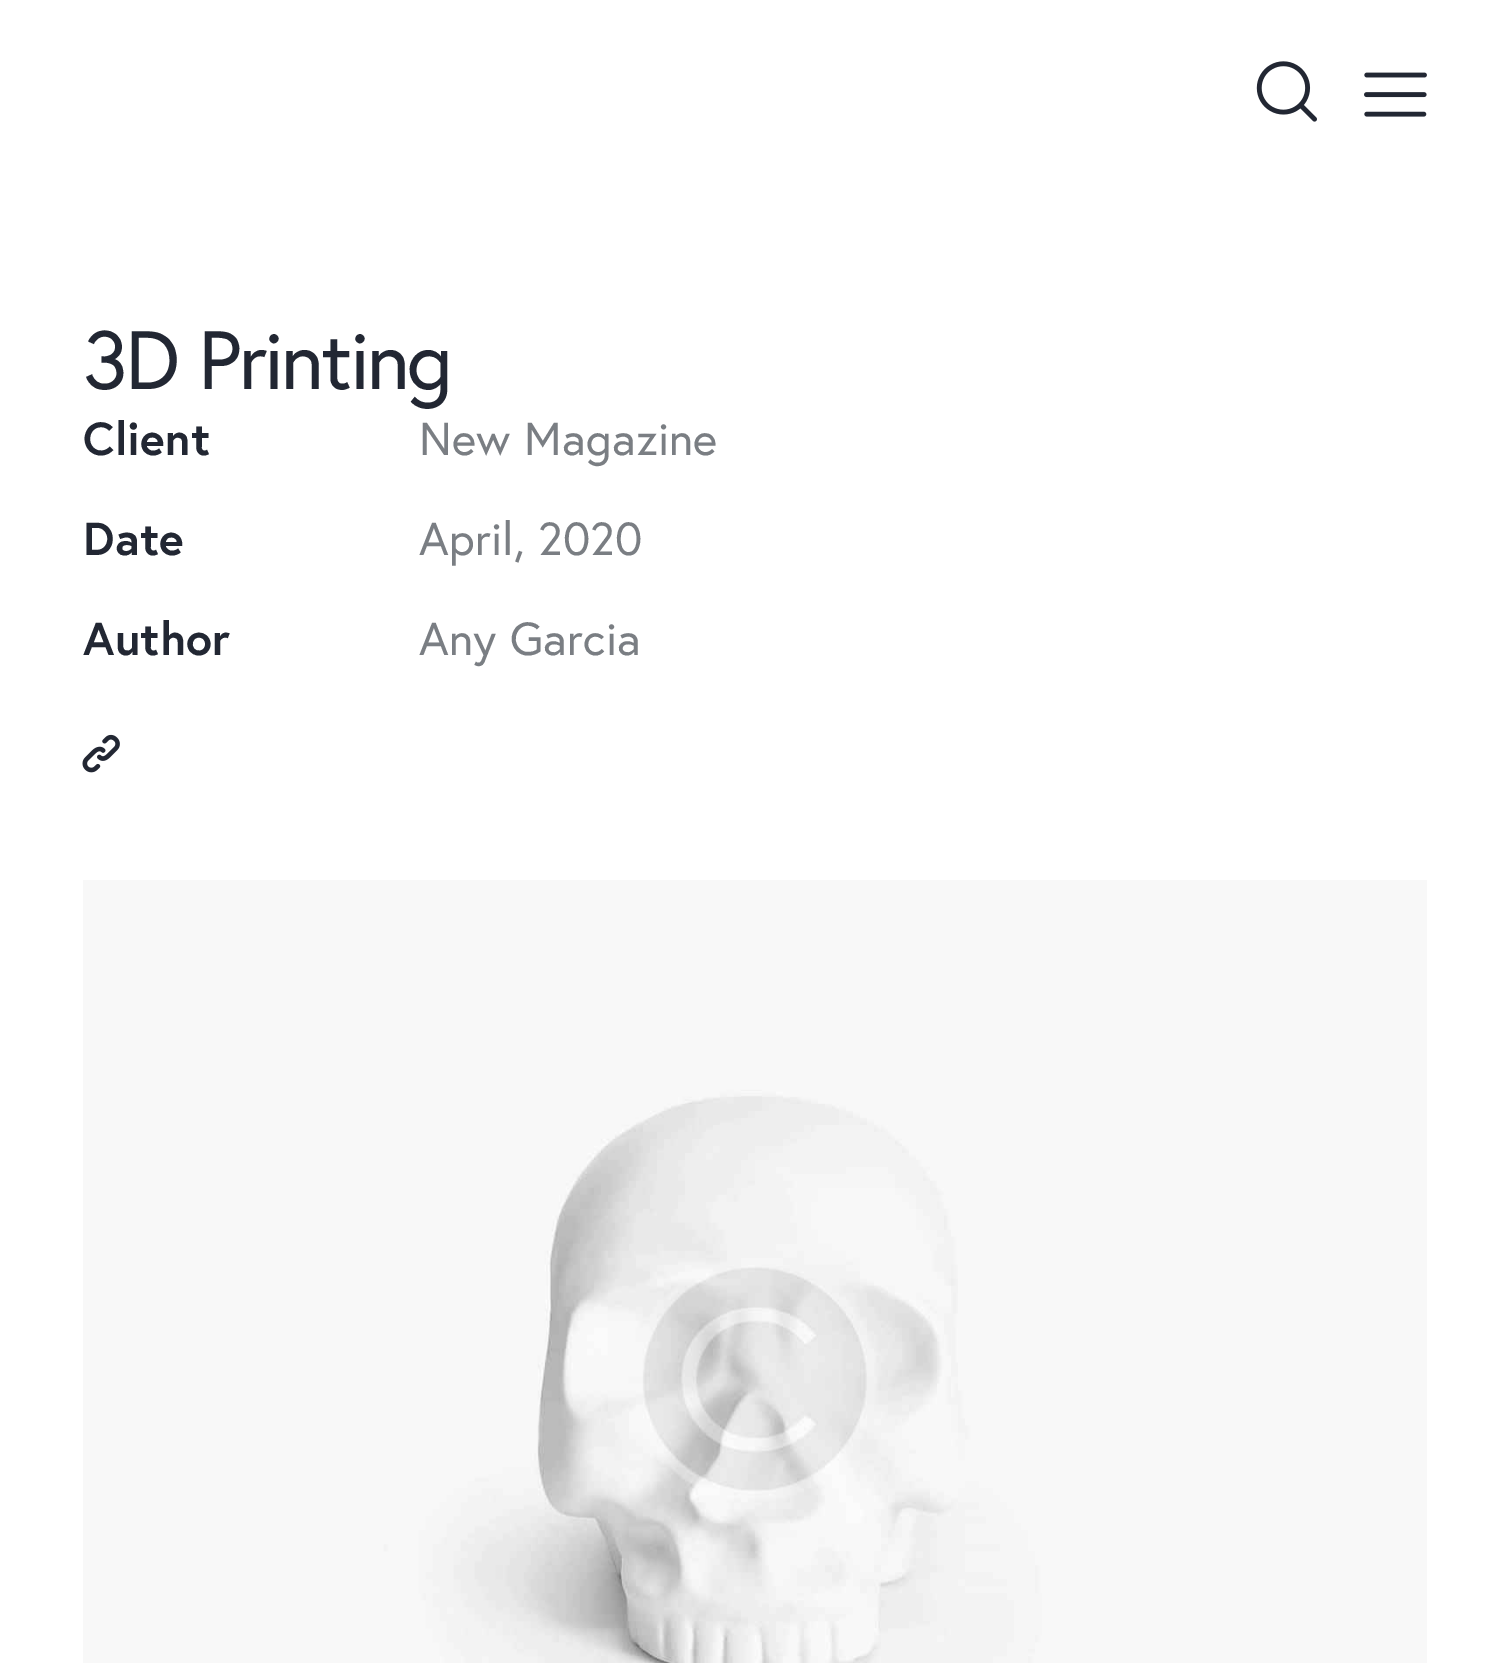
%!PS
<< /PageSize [1508 1663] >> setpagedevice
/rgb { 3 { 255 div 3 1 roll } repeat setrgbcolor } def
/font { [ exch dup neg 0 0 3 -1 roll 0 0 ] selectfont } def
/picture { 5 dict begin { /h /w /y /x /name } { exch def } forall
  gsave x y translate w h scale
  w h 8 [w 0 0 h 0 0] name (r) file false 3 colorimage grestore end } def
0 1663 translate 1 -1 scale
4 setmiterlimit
255 255 255 rgb
0 0 1508 1663 rectfill
(img/1.rgb) 1256 61 61 61 picture
(img/2.rgb) 1364 72 63 45 picture
(img/3.rgb) 82 734 38 39 picture
(img/4.rgb) 83 880 1344 783 picture
/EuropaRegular-Regular 82.5 font
34 39 51 rgb
83 389 moveto -2.75 0 (3D Printing) ashow
/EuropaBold-Bold 46.25 font
83 455 moveto 0.25 0 (Client) ashow
/EuropaRegular-Regular 46.25 font
122 126 131 rgb
419 455 moveto 0.25 0 (New Magazine) ashow
/EuropaBold-Bold 46.25 font
34 39 51 rgb
83 555 moveto 0.25 0 (Date) ashow
/EuropaRegular-Regular 46.25 font
122 126 131 rgb
419 555 moveto 0.25 0 (April, 2020) ashow
/EuropaBold-Bold 46.25 font
34 39 51 rgb
83 655 moveto 0.25 0 (Author) ashow
/EuropaRegular-Regular 46.25 font
122 126 131 rgb
419 655 moveto 0.25 0 (Any Garcia) ashow
showpage
